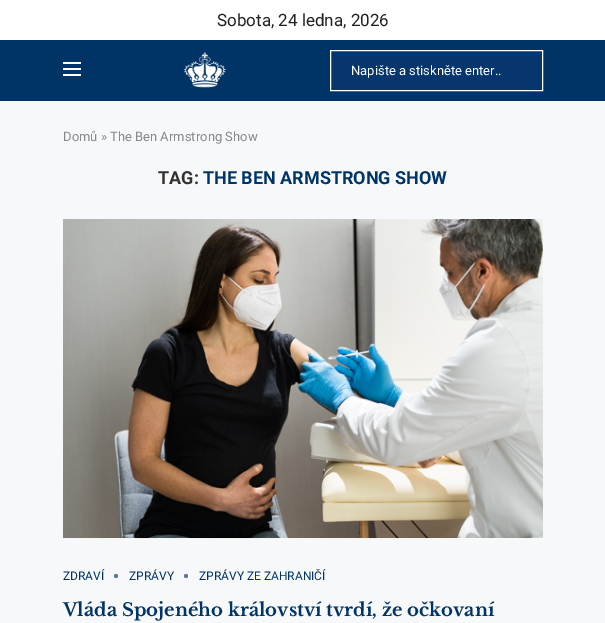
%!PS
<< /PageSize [605 623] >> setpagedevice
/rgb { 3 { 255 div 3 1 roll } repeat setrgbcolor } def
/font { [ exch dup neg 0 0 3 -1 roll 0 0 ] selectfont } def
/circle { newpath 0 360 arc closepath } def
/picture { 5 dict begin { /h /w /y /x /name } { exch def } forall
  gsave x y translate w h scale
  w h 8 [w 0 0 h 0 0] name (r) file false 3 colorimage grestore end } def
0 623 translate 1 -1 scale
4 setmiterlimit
246 248 250 rgb
0 0 605 623 rectfill
[
  [0 0 605 40 255 255 255]
  [0 40 605 61 0 51 102]
  [63 62 18 2 255 255 255]
  [63 68 18 2 255 255 255]
  [63 74 18 2 255 255 255]
] { aload pop rgb rectfill } forall
(img/1.rgb) 183 52 43 36 picture
6 54 109 rgb
330.5 50.5 moveto 542.5 50.5 lineto 542.5 90.5 lineto 330.5 90.5 lineto closepath gsave fill grestore
255 255 255 rgb
stroke
(img/2.rgb) 63 219 480 320 picture
86 120 154 rgb
116 576 2 circle fill
186 576 2 circle fill
/Roboto-Regular 17 font
33 33 33 rgb
217 26 moveto (Sobota, 24 ledna, 2026) show
/Roboto-Regular 13 font
252 252 252 rgb
351 75 moveto (Napište a stiskněte enter..) show
136 136 136 rgb
63 141 moveto (Domů » The Ben Armstrong Show) show
/Roboto-Bold 18 font
49 49 49 rgb
158 184 moveto (TAG:) show
0 51 102 rgb
203 184 moveto (THE BEN ARMSTRONG SHOW) show
/Roboto-Regular 12 font
[
  [(ZDRAVÍ) 63 580]
  [(ZPRÁVY) 129 580]
  [(ZPRÁVY ZE ZAHRANIČÍ) 199 580]
] { aload pop moveto show } forall
/LibreBaskerville-Bold 18 font
63 616 moveto (Vláda Spojeného království tvrdí, že očkovaní) show
showpage
